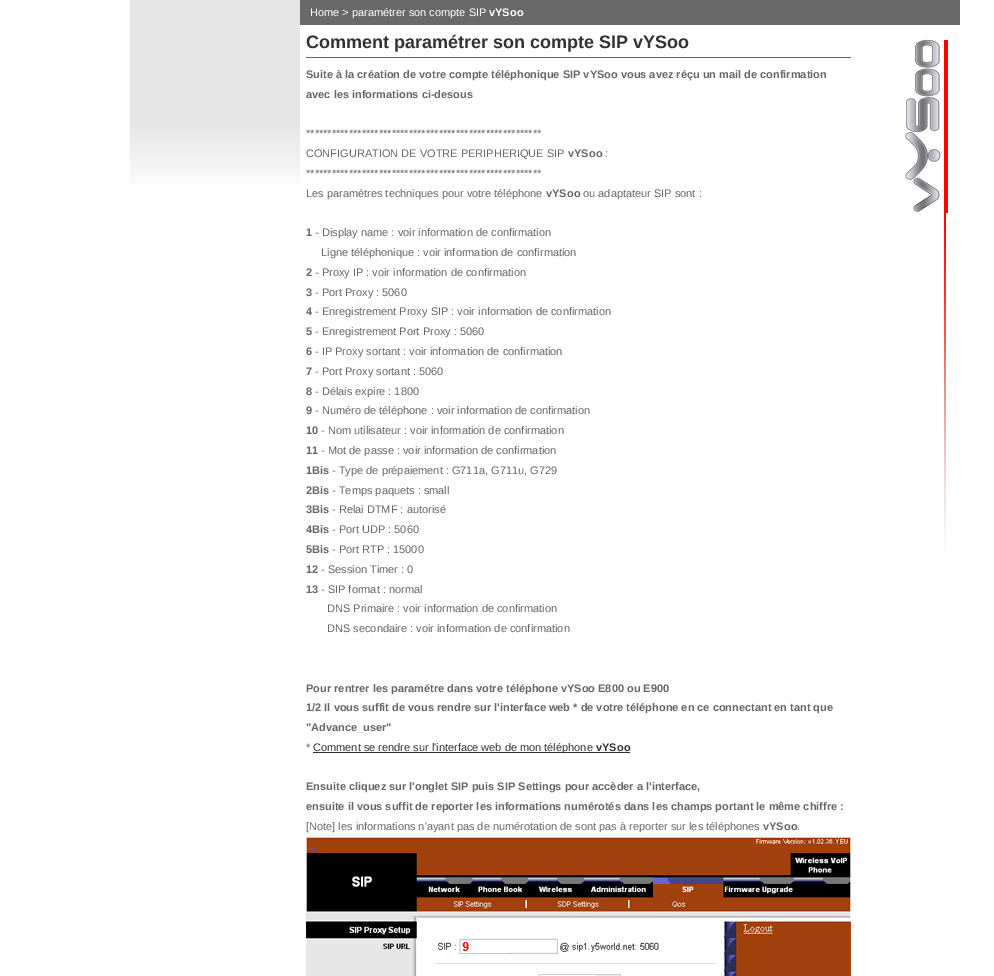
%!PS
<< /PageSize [994 976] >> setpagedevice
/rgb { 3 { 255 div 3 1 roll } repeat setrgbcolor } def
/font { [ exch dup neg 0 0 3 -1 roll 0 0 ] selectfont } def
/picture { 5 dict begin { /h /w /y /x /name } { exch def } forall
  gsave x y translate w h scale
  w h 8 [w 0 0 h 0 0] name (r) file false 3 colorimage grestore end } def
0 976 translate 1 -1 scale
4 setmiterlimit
255 255 255 rgb
0 0 994 976 rectfill
(img/1.rgb) 130 0 170 184 picture
106 105 106 rgb
300 0 660 25 rectfill
(img/2.rgb) 902 39 46 511 picture
102 102 102 rgb
306 57 545 1 rectfill
50 50 51 rgb
313 752 317 1 rectfill
(img/3.rgb) 306 837 545 139 picture
/LiberationSans-Regular 11 font
255 255 255 rgb
310 16 moveto (Home > paramétrer son compte SIP) show
/LiberationSans-Bold 11 font
489 16 moveto (vYSoo) show
/LiberationSans-Bold 18 font
50 50 51 rgb
306 48 moveto (Comment paramétrer son compte SIP vYSoo) show
/LiberationSans-Bold 11 font
102 102 102 rgb
306 78 moveto (Suite à la création de votre compte téléphonique SIP vYSoo vous avez réçu un mail de confirmation) show
306 98 moveto (avec les informations ci-desous) show
/LiberationSans-Regular 11 font
306 137 moveto (*******************************************************) show
306 157 moveto (CONFIGURATION DE VOTRE PERIPHERIQUE SIP) show
/LiberationSans-Bold 11 font
568 157 moveto (vYSoo) show
/LiberationSans-Regular 11 font
[
  [(:) 605 157]
  [(*******************************************************) 306 177]
  [(Les paramètres techniques pour votre téléphone) 306 197]
] { aload pop moveto show } forall
/LiberationSans-Bold 11 font
546 197 moveto (vYSoo) show
/LiberationSans-Regular 11 font
583 197 moveto (ou adaptateur SIP sont :) show
/LiberationSans-Bold 11 font
306 236 moveto (1) show
/LiberationSans-Regular 11 font
315 236 moveto (- Display name : voir information de confirmation) show
321 256 moveto (Ligne téléphonique : voir information de confirmation) show
/LiberationSans-Bold 11 font
306 276 moveto (2) show
/LiberationSans-Regular 11 font
315 276 moveto (- Proxy IP : voir information de confirmation) show
/LiberationSans-Bold 11 font
306 296 moveto (3) show
/LiberationSans-Regular 11 font
315 296 moveto (- Port Proxy : 5060) show
/LiberationSans-Bold 11 font
306 315 moveto (4) show
/LiberationSans-Regular 11 font
315 315 moveto (- Enregistrement Proxy SIP : voir information de confirmation) show
/LiberationSans-Bold 11 font
306 335 moveto (5) show
/LiberationSans-Regular 11 font
315 335 moveto (- Enregistrement Port Proxy : 5060) show
/LiberationSans-Bold 11 font
306 355 moveto (6) show
/LiberationSans-Regular 11 font
315 355 moveto (- IP Proxy sortant : voir information de confirmation) show
/LiberationSans-Bold 11 font
306 375 moveto (7) show
/LiberationSans-Regular 11 font
315 375 moveto (- Port Proxy sortant : 5060) show
/LiberationSans-Bold 11 font
306 395 moveto (8) show
/LiberationSans-Regular 11 font
315 395 moveto (- Délais expire : 1800) show
/LiberationSans-Bold 11 font
306 414 moveto (9) show
/LiberationSans-Regular 11 font
315 414 moveto (- Numéro de téléphone : voir information de confirmation) show
/LiberationSans-Bold 11 font
306 434 moveto (10) show
/LiberationSans-Regular 11 font
321 434 moveto (- Nom utilisateur : voir information de confirmation) show
/LiberationSans-Bold 11 font
306 454 moveto (11) show
/LiberationSans-Regular 11 font
321 454 moveto (- Mot de passe : voir information de confirmation) show
/LiberationSans-Bold 11 font
306 474 moveto (1Bis) show
/LiberationSans-Regular 11 font
332 474 moveto (- Type de prépaiement : G711a, G711u, G729) show
/LiberationSans-Bold 11 font
306 494 moveto (2Bis) show
/LiberationSans-Regular 11 font
332 494 moveto (- Temps paquets : small) show
/LiberationSans-Bold 11 font
306 513 moveto (3Bis) show
/LiberationSans-Regular 11 font
332 513 moveto (- Relai DTMF : autorisé) show
/LiberationSans-Bold 11 font
306 533 moveto (4Bis) show
/LiberationSans-Regular 11 font
332 533 moveto (- Port UDP : 5060) show
/LiberationSans-Bold 11 font
306 553 moveto (5Bis) show
/LiberationSans-Regular 11 font
332 553 moveto (- Port RTP : 15000) show
/LiberationSans-Bold 11 font
306 573 moveto (12) show
/LiberationSans-Regular 11 font
321 573 moveto (- Session Timer : 0) show
/LiberationSans-Bold 11 font
306 593 moveto (13) show
/LiberationSans-Regular 11 font
[
  [(- SIP format : normal) 321 593]
  [(DNS Primaire : voir information de confirmation) 327 612]
  [(DNS secondaire : voir information de confirmation) 327 632]
] { aload pop moveto show } forall
/LiberationSans-Bold 11 font
[
  [(Pour rentrer les paramétre dans votre téléphone vYSoo E800 ou E900) 306 692]
  [(1/2 Il vous suffit de vous rendre sur l'interface web * de votre téléphone en ce connectant en tant que) 306 711]
  [("Advance_user") 306 731]
] { aload pop moveto show } forall
/LiberationSans-Regular 11 font
306 751 moveto (*) show
50 50 51 rgb
313 751 moveto (Comment se rendre sur l'interface web de mon téléphone) show
/LiberationSans-Bold 11 font
596 751 moveto (vYSoo) show
102 102 102 rgb
306 790 moveto (Ensuite cliquez sur l'onglet SIP puis SIP Settings pour accèder a l'interface,) show
306 810 moveto (ensuite il vous suffit de reporter les informations numérotés dans les champs portant le même chiffre :) show
/LiberationSans-Regular 11 font
306 830 moveto ([Note] les informations n'ayant pas de numérotation de sont pas à reporter sur les téléphones) show
/LiberationSans-Bold 11 font
763 830 moveto (vYSoo) show
/LiberationSans-Regular 11 font
797 830 moveto (.) show
showpage
